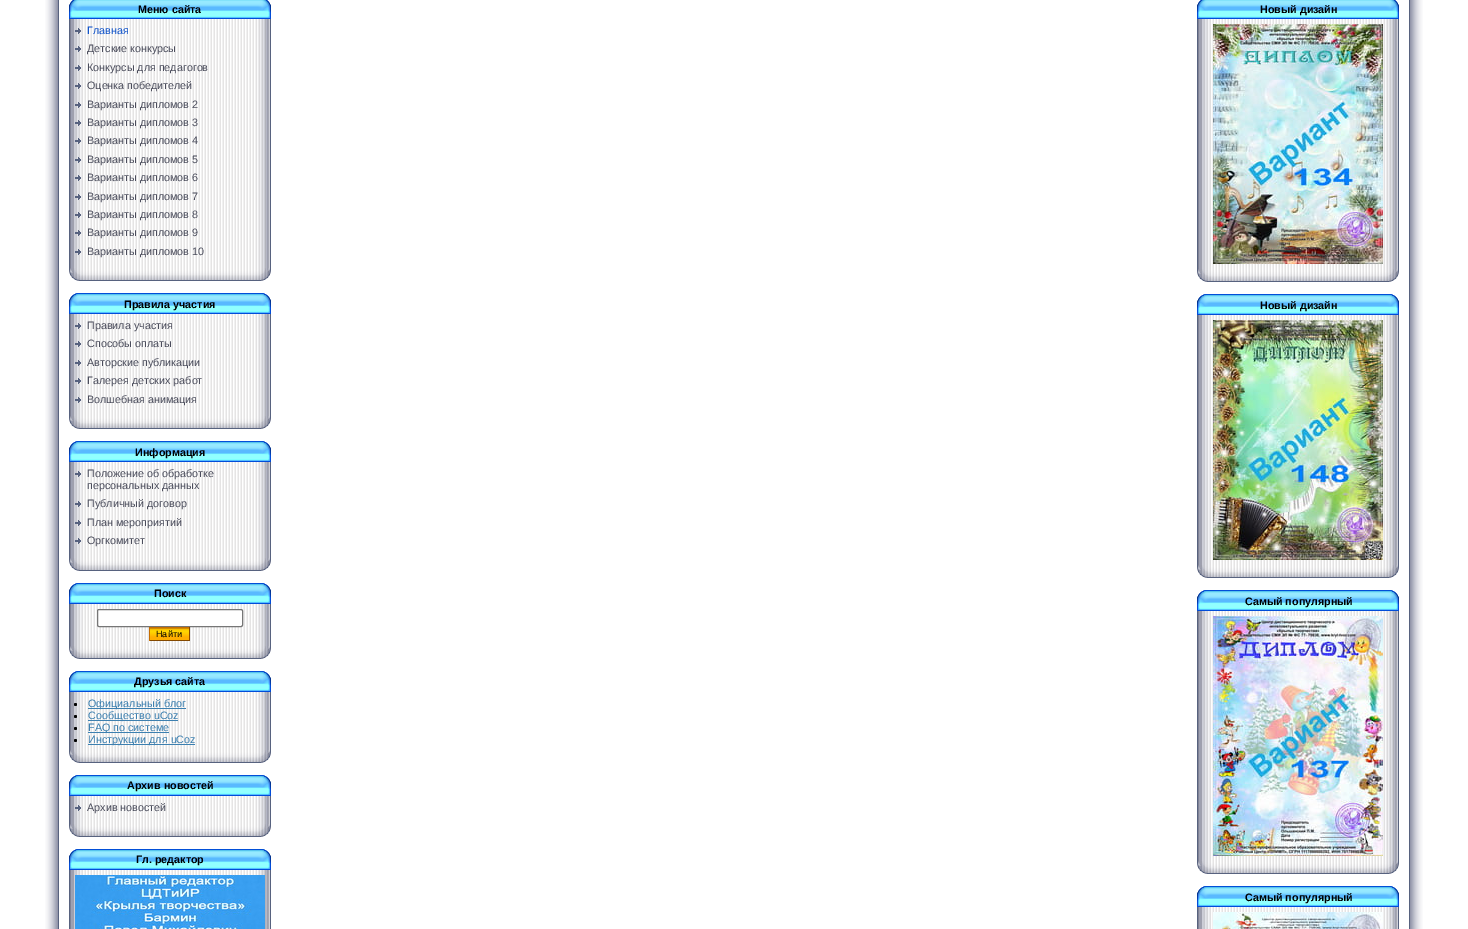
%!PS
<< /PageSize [1468 929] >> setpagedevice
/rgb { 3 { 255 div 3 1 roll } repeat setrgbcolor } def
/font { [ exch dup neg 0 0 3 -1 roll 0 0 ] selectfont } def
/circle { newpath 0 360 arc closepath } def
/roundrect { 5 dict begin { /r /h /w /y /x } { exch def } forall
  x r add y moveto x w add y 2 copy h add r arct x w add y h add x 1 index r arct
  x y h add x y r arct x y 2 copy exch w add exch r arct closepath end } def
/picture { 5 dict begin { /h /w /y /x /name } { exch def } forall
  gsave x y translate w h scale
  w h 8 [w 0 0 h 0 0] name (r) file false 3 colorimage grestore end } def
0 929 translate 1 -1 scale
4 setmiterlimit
255 255 255 rgb
0 0 1468 929 rectfill
(img/1.rgb) 45 0 14 929 picture
(img/2.rgb) 69 0 202 19 picture
(img/3.rgb) 69 19 202 249 picture
(img/4.rgb) 75 28 6 6 picture
(img/4.rgb) 75 46 6 6 picture
(img/4.rgb) 75 65 6 6 picture
(img/4.rgb) 75 83 6 6 picture
(img/4.rgb) 75 102 6 6 picture
(img/4.rgb) 75 120 6 6 picture
(img/4.rgb) 75 138 6 6 picture
(img/4.rgb) 75 157 6 6 picture
(img/4.rgb) 75 175 6 6 picture
(img/4.rgb) 75 194 6 6 picture
(img/4.rgb) 75 212 6 6 picture
(img/4.rgb) 75 230 6 6 picture
(img/4.rgb) 75 249 6 6 picture
(img/5.rgb) 69 268 202 13 picture
(img/6.rgb) 69 293 202 21 picture
(img/7.rgb) 69 314 202 102 picture
(img/4.rgb) 75 323 6 6 picture
(img/4.rgb) 75 341 6 6 picture
(img/4.rgb) 75 360 6 6 picture
(img/4.rgb) 75 378 6 6 picture
(img/4.rgb) 75 397 6 6 picture
(img/5.rgb) 69 416 202 13 picture
(img/6.rgb) 69 441 202 21 picture
(img/8.rgb) 69 462 202 96 picture
(img/4.rgb) 75 471 6 6 picture
(img/4.rgb) 75 501 6 6 picture
(img/4.rgb) 75 520 6 6 picture
(img/4.rgb) 75 538 6 6 picture
(img/5.rgb) 69 558 202 13 picture
(img/6.rgb) 69 583 202 21 picture
(img/9.rgb) 69 604 202 42 picture
97.5 609.5 145 17 1.5 roundrect gsave fill grestore
118 118 118 rgb
stroke
(img/10.rgb) 150 628 39 12 picture
[
  [149 627 41 1 198 109 0]
  [189 627 1 14 132 73 0]
  [149 640 41 1 132 73 0]
  [149 627 1 14 198 109 0]
] { aload pop rgb rectfill } forall
(img/5.rgb) 69 646 202 13 picture
(img/6.rgb) 69 671 202 21 picture
(img/11.rgb) 69 692 202 58 picture
0 0 0 rgb
75.5 704.5 1.5 circle fill
61 128 176 rgb
88 708 98 1 rectfill
0 0 0 rgb
75.5 716.5 1.5 circle fill
61 128 176 rgb
88 720 90 1 rectfill
0 0 0 rgb
75.5 728.5 1.5 circle fill
61 128 176 rgb
88 732 81 1 rectfill
0 0 0 rgb
75.5 740.5 1.5 circle fill
61 128 176 rgb
88 744 107 1 rectfill
(img/5.rgb) 69 750 202 13 picture
(img/6.rgb) 69 775 202 21 picture
(img/12.rgb) 69 796 202 28 picture
(img/4.rgb) 75 805 6 6 picture
(img/5.rgb) 69 824 202 13 picture
(img/6.rgb) 69 849 202 21 picture
(img/13.rgb) 69 870 202 59 picture
(img/14.rgb) 75 875 190 54 picture
(img/2.rgb) 1197 0 202 19 picture
(img/15.rgb) 1197 19 202 250 picture
(img/16.rgb) 1213 24 170 240 picture
(img/5.rgb) 1197 269 202 13 picture
(img/6.rgb) 1197 294 202 21 picture
(img/15.rgb) 1197 315 202 250 picture
(img/17.rgb) 1213 320 170 240 picture
(img/5.rgb) 1197 565 202 13 picture
(img/6.rgb) 1197 590 202 21 picture
(img/15.rgb) 1197 611 202 250 picture
(img/18.rgb) 1213 616 170 240 picture
(img/5.rgb) 1197 861 202 13 picture
(img/6.rgb) 1197 886 202 21 picture
(img/19.rgb) 1197 907 202 22 picture
(img/20.rgb) 1213 912 170 17 picture
(img/21.rgb) 1409 0 14 929 picture
/LiberationSans-Bold 10.75 font
0 0 0 rgb
138 13 moveto (Меню сайта) show
/LiberationSans-Regular 10.75 font
17 84 202 rgb
87 34 moveto (Главная) show
75 77 92 rgb
[
  [(Детские конкурсы) 87 52]
  [(Конкурсы для педагогов) 87 71]
  [(Оценка победителей) 87 89]
  [(Варианты дипломов 2) 87 108]
  [(Варианты дипломов 3) 87 126]
  [(Варианты дипломов 4) 87 144]
  [(Варианты дипломов 5) 87 163]
  [(Варианты дипломов 6) 87 181]
  [(Варианты дипломов 7) 87 200]
  [(Варианты дипломов 8) 87 218]
  [(Варианты дипломов 9) 87 236]
  [(Варианты дипломов 10) 87 255]
] { aload pop moveto show } forall
/LiberationSans-Bold 10.75 font
0 0 0 rgb
124 308 moveto (Правила участия) show
/LiberationSans-Regular 10.75 font
75 77 92 rgb
[
  [(Правила участия) 87 329]
  [(Способы оплаты) 87 347]
  [(Авторские публикации) 87 366]
  [(Галерея детских работ) 87 384]
  [(Волшебная анимация) 87 403]
] { aload pop moveto show } forall
/LiberationSans-Bold 10.75 font
0 0 0 rgb
135 456 moveto (Информация) show
/LiberationSans-Regular 10.75 font
75 77 92 rgb
[
  [(Положение об обработке) 87 477]
  [(персональных данных) 87 489]
  [(Публичный договор) 87 507]
  [(План мероприятий) 87 526]
  [(Оргкомитет) 87 544]
] { aload pop moveto show } forall
/LiberationSans-Bold 10.75 font
0 0 0 rgb
154 597 moveto (Поиск) show
/LiberationSans-Regular 9 font
156 637 moveto (Найти) show
/LiberationSans-Bold 10.75 font
134 685 moveto (Друзья сайта) show
/LiberationSans-Regular 10.75 font
61 128 176 rgb
[
  [(Официальный блог) 88 707]
  [(Сообщество uCoz) 88 719]
  [(FAQ по системе) 88 731]
  [(Инструкции для uCoz) 88 743]
] { aload pop moveto show } forall
/LiberationSans-Bold 10.75 font
0 0 0 rgb
127 789 moveto (Архив новостей) show
/LiberationSans-Regular 10.75 font
75 77 92 rgb
87 811 moveto (Архив новостей) show
/LiberationSans-Bold 10.75 font
0 0 0 rgb
[
  [(Гл. редактор) 136 863]
  [(Новый дизайн) 1260 13]
  [(Новый дизайн) 1260 309]
  [(Самый популярный) 1245 605]
  [(Самый популярный) 1245 901]
] { aload pop moveto show } forall
showpage
